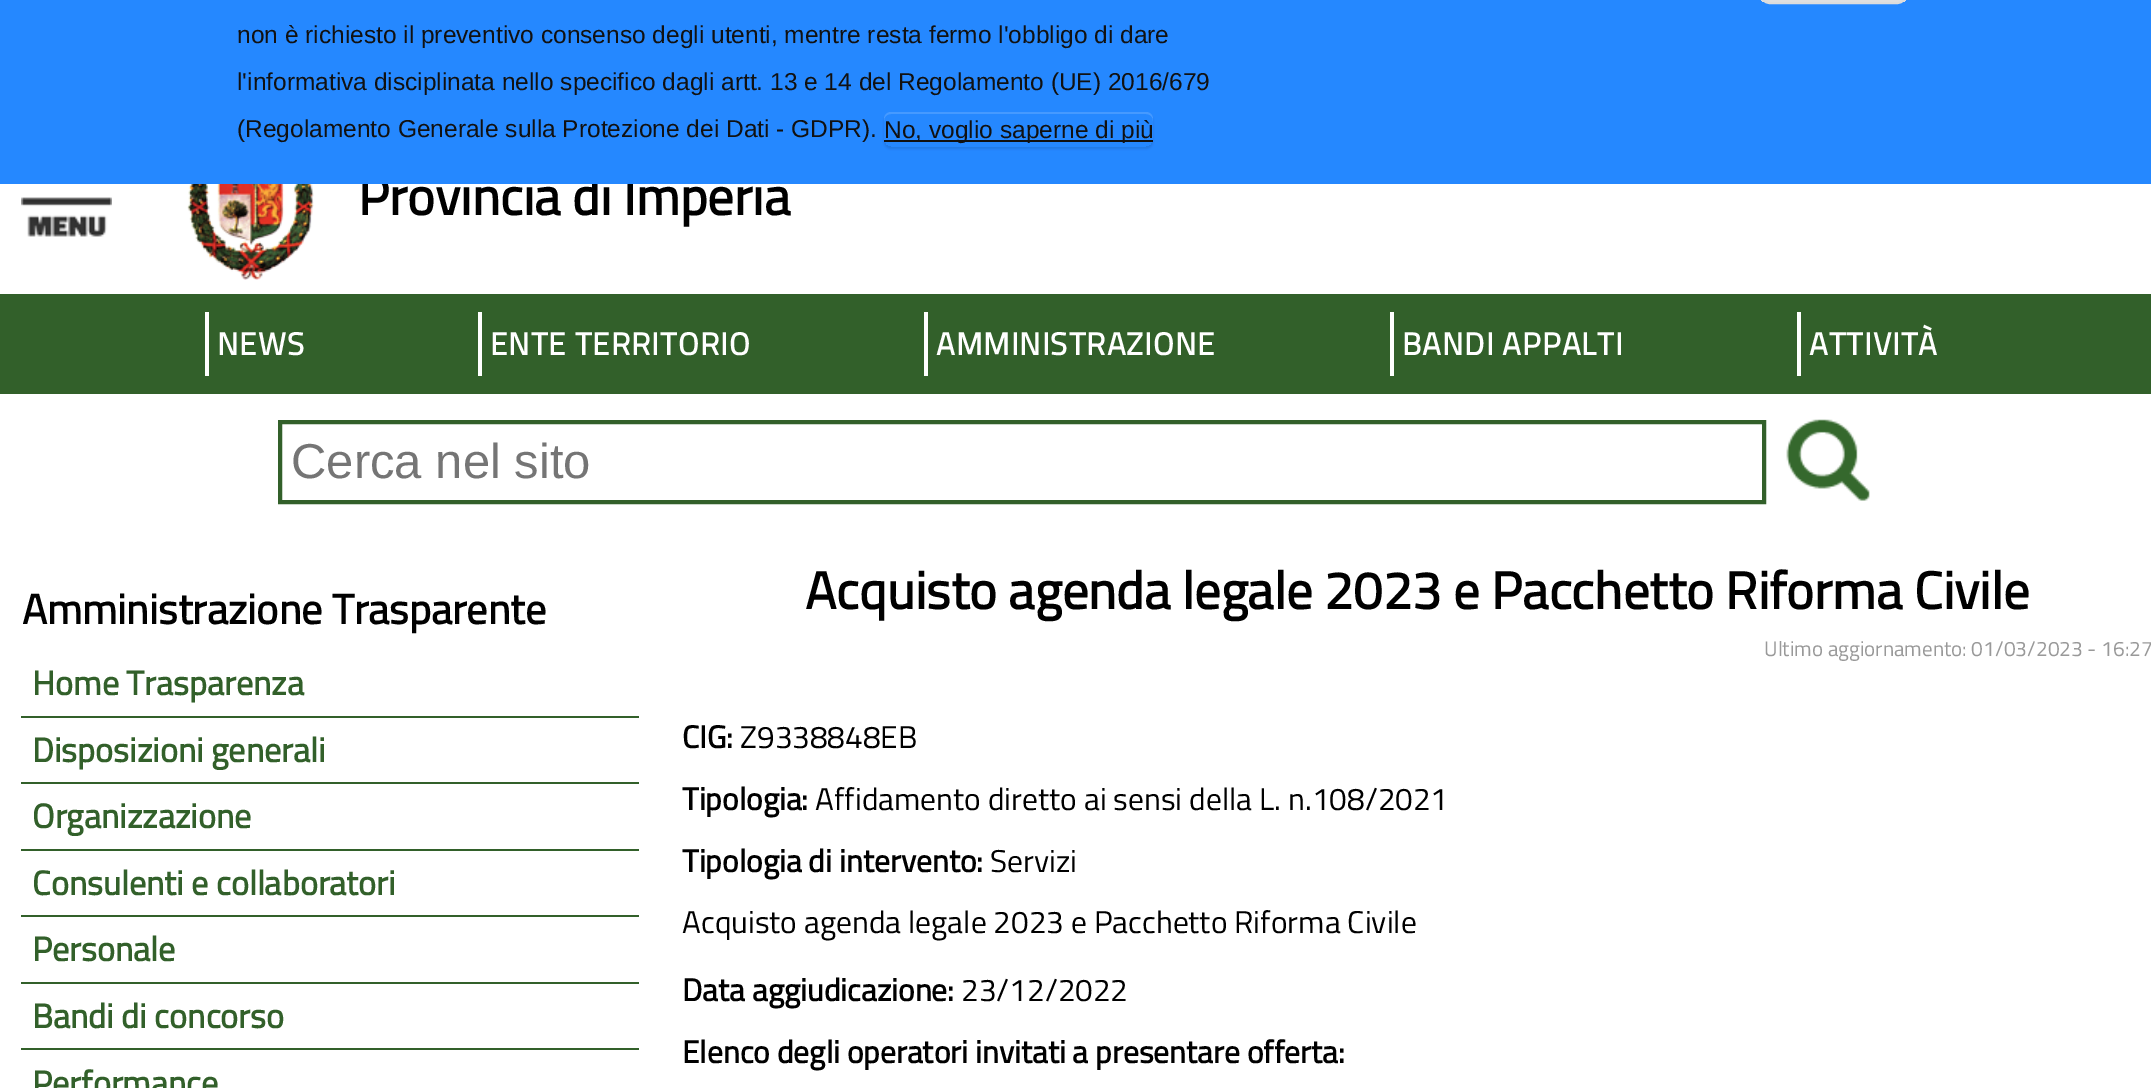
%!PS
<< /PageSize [2151 1088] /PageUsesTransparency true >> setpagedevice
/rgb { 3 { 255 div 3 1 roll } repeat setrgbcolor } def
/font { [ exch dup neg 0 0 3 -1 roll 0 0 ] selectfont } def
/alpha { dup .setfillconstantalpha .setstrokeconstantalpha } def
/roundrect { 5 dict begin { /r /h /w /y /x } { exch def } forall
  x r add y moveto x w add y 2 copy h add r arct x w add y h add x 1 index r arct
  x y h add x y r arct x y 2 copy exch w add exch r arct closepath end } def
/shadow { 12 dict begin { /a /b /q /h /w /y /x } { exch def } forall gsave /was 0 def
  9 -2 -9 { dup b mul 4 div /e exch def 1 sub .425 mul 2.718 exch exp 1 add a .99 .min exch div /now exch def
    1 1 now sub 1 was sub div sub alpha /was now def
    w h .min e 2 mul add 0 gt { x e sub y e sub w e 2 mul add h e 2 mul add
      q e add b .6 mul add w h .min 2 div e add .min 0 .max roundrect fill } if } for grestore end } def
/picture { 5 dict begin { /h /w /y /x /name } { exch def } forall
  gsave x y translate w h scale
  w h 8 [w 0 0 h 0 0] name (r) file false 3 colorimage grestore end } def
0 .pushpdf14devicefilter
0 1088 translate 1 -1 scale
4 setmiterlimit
255 255 255 rgb
0 0 2151 1088 rectfill
(img/1.rgb) 21 197 91 40 picture
(img/2.rgb) 187 184 127 96 picture
[
  [0 294 2151 100 50 96 42]
  [205 312 4 64 255 255 255]
  [478 312 4 64 255 255 255]
  [924 312 4 64 255 255 255]
  [1390 312 4 64 255 255 255]
  [1797 312 4 64 255 255 255]
] { aload pop rgb rectfill } forall
50 96 42 rgb
4 setlinewidth
280 422 1484 80 rectstroke
(img/3.rgb) 1786 419 84 82 picture
[
  [21 716 618 2 50 96 42]
  [21 782 618 2 50 96 42]
  [21 849 618 2 50 96 42]
  [21 915 618 2 50 96 42]
  [21 982 618 2 50 96 42]
  [21 1048 618 2 50 96 42]
] { aload pop rgb rectfill } forall
/TitilliumWeb-Bold 52.5 font
0 0 0 rgb
358 215 moveto (Provincia di Imperia) show
37 136 255 rgb
0 0 2151 184 rectfill
gsave
1759 -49 149 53 11 roundrect clip newpath
gsave 1759 0 moveto 1908 0 lineto 1908 2 lineto 1759 2 lineto closepath clip newpath
<< /ShadingType 2 /ColorSpace /DeviceRGB /Coords [1833 -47 1833 1.8] /Extend [true true] /Function << /FunctionType 3 /Domain [0 1] /Functions [<< /FunctionType 2 /Domain [0 1] /C0 [0.929 0.929 0.929] /C1 [0.929 0.929 0.929] /N 1 >> << /FunctionType 2 /Domain [0 1] /C0 [0.929 0.929 0.929] /C1 [0.875 0.875 0.875] /N 1 >>] /Bounds [0.05] /Encode [0 1 0 1] >> >> shfill grestore
grestore
220 220 220 rgb
2 setlinewidth
1760 -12 147 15 10 roundrect stroke
gsave
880 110 moveto 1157 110 lineto 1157 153 lineto 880 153 lineto closepath 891 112 moveto 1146 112 lineto 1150 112 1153 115 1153 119 curveto 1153 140 lineto 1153 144 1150 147 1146 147 curveto 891 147 lineto 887 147 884 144 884 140 curveto 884 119 lineto 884 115 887 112 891 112 curveto closepath eoclip newpath
0 0 0 rgb
884 114 269 35 7 1 0.1 shadow
grestore
17 17 17 rgb
884 140 269 2 rectfill
70 154 255 rgb
891 114 moveto 1146 114 lineto 1150 114 1153 117 1153 121 curveto 1153 119 lineto 1153 115 1150 112 1146 112 curveto 891 112 lineto 887 112 884 115 884 119 curveto 884 121 lineto 884 117 887 114 891 114 curveto closepath fill
/LiberationSans-Regular 24.5 font
17 17 17 rgb
[
  [(No, voglio saperne di più) 884 138]
  [(\(Regolamento Generale sulla Protezione dei Dati - GDPR\).) 237 137]
  [(l'informativa disciplinata nello specifico dagli artt. 13 e 14 del Regolamento \(UE\) 2016/679) 237 90]
  [(non è richiesto il preventivo consenso degli utenti, mentre resta fermo l'obbligo di dare) 237 43]
] { aload pop moveto show } forall
/TitilliumWeb-Bold 31.5 font
255 255 255 rgb
217 355 moveto 1 0 (NEWS) ashow
490 355 moveto 1 0 (ENTE TERRITORIO) ashow
936 355 moveto 1 0 (AMMINISTRAZIONE) ashow
1402 355 moveto 1 0 (BANDI APPALTI) ashow
1809 355 moveto 1 0 (ATTIVITÀ) ashow
/LiberationSans-Regular 49 font
117 117 117 rgb
291 478 moveto (Cerca nel sito) show
/TitilliumWeb-Bold 42 font
0 0 0 rgb
22 624 moveto (Amministrazione Trasparente) show
/TitilliumWeb-Bold 34.1 font
50 96 42 rgb
[
  [(Home Trasparenza) 32 695]
  [(Disposizioni generali) 32 762]
  [(Organizzazione) 32 828]
  [(Consulenti e collaboratori) 32 895]
  [(Personale) 32 961]
  [(Bandi di concorso) 32 1028]
  [(Performance) 32 1095]
] { aload pop moveto show } forall
/TitilliumWeb-Bold 52.5 font
0 0 0 rgb
805 609 moveto (Acquisto agenda legale 2023 e Pacchetto Riforma Civile) show
/TitilliumWeb-Regular 21 font
153 153 153 rgb
1764 656 moveto (Ultimo aggiornamento: 01/03/2023 - 16:27) show
/TitilliumWeb-Bold 31.5 font
0 0 0 rgb
682 748 moveto (CIG:) show
/TitilliumWeb-Regular 31.5 font
740 748 moveto (Z9338848EB) show
/TitilliumWeb-Bold 31.5 font
682 810 moveto (Tipologia:) show
/TitilliumWeb-Regular 31.5 font
815 810 moveto (Affidamento diretto ai sensi della L. n.108/2021) show
/TitilliumWeb-Bold 31.5 font
682 872 moveto (Tipologia di intervento:) show
/TitilliumWeb-Regular 31.5 font
990 872 moveto (Servizi) show
682 933 moveto (Acquisto agenda legale 2023 e Pacchetto Riforma Civile) show
/TitilliumWeb-Bold 31.5 font
682 1001 moveto (Data aggiudicazione:) show
/TitilliumWeb-Regular 31.5 font
961 1001 moveto (23/12/2022) show
/TitilliumWeb-Bold 31.5 font
682 1063 moveto (Elenco degli operatori invitati a presentare offerta:) show
.poppdf14devicefilter showpage
